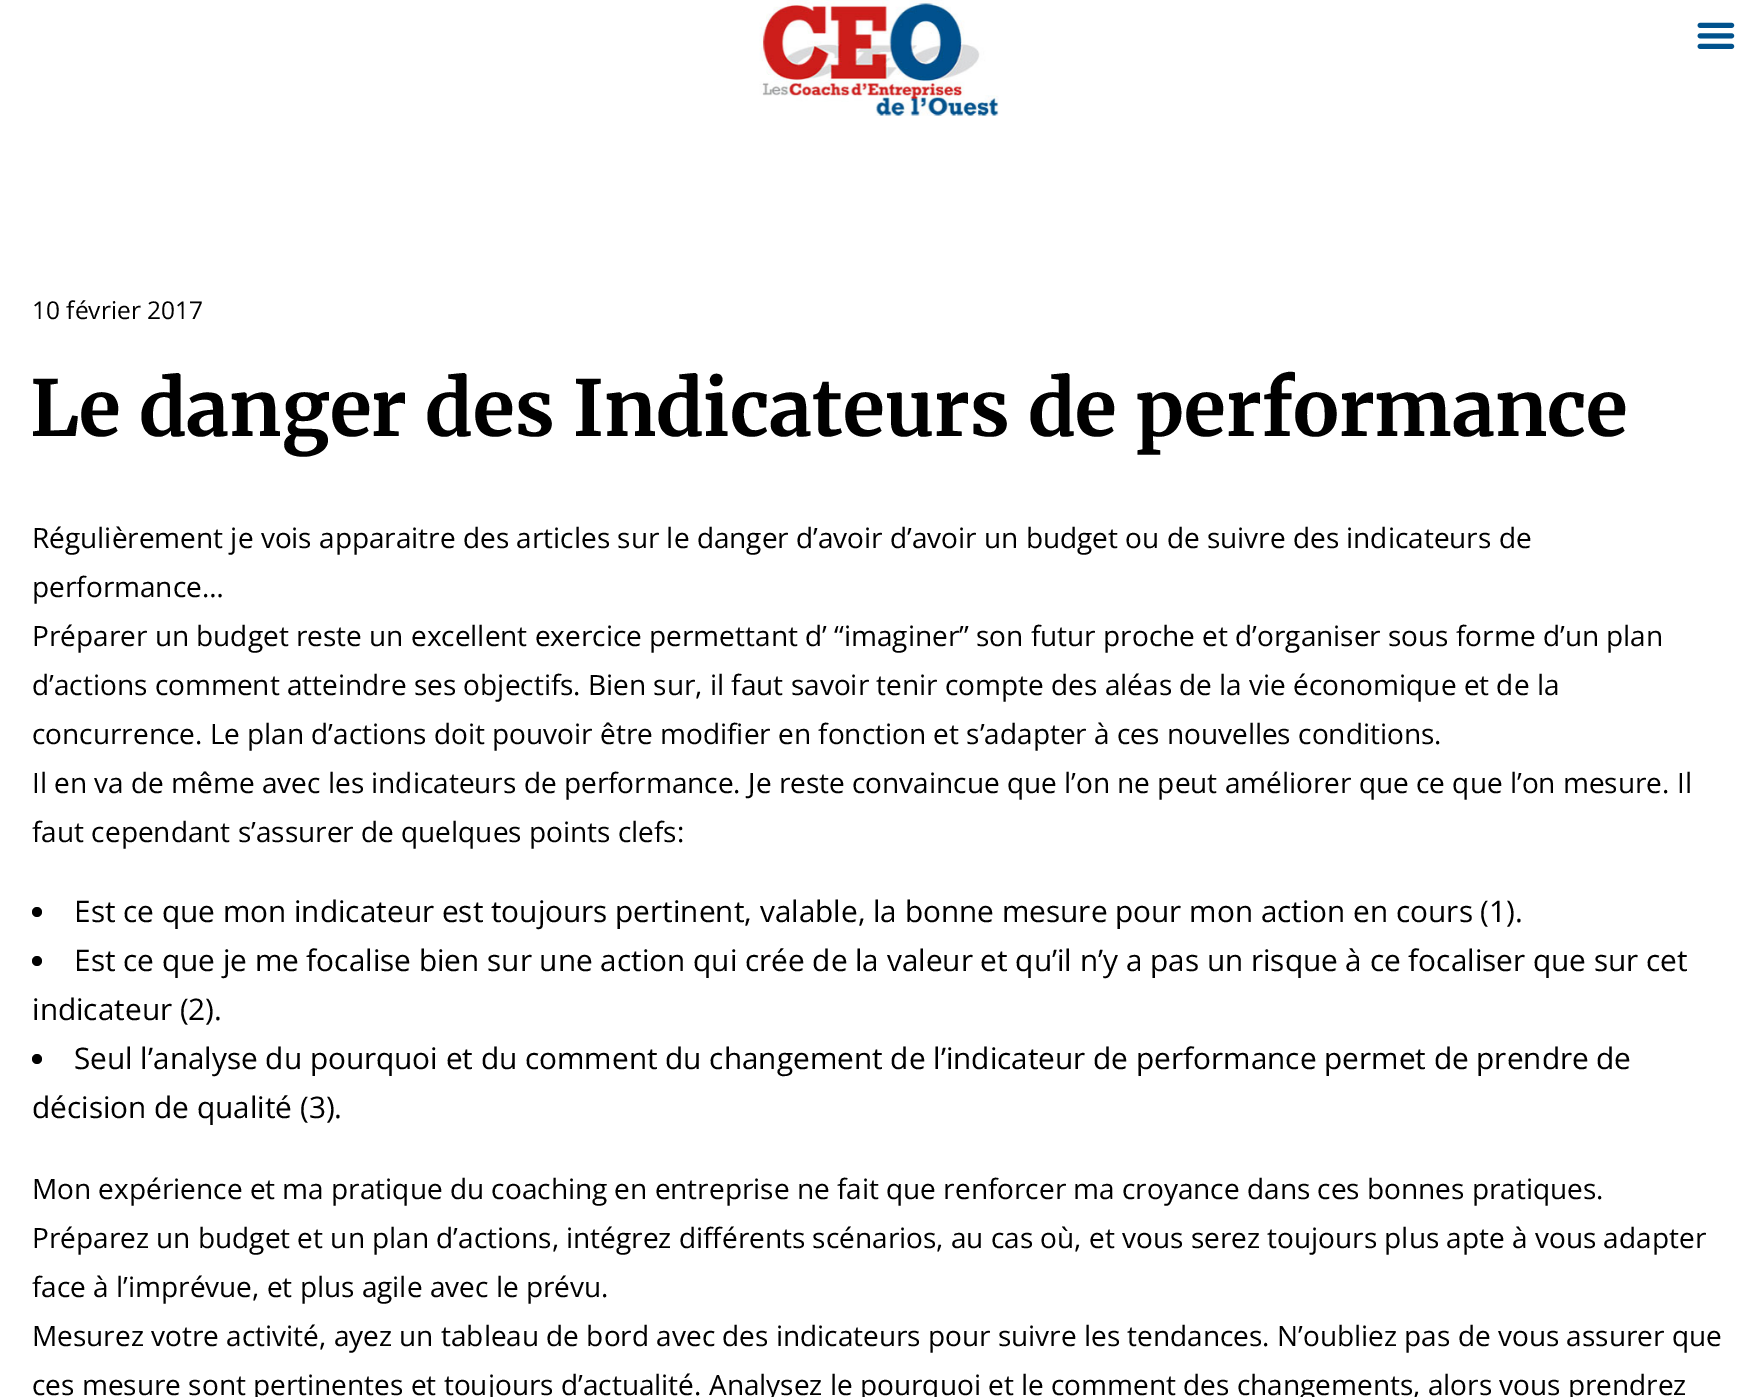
%!PS
<< /PageSize [1760 1397] >> setpagedevice
/rgb { 3 { 255 div 3 1 roll } repeat setrgbcolor } def
/font { [ exch dup neg 0 0 3 -1 roll 0 0 ] selectfont } def
/circle { newpath 0 360 arc closepath } def
/picture { 5 dict begin { /h /w /y /x /name } { exch def } forall
  gsave x y translate w h scale
  w h 8 [w 0 0 h 0 0] name (r) file false 3 colorimage grestore end } def
0 1397 translate 1 -1 scale
4 setmiterlimit
255 255 255 rgb
0 0 1760 1397 rectfill
(img/1.rgb) 759 0 240 116 picture
(img/2.rgb) 1697 22 38 27 picture
0 0 0 rgb
37 912 5 circle fill
37 961 5 circle fill
37 1059 5 circle fill
/OpenSans-Regular 24.5 font
32 319 moveto (10 février 2017) show
/Merriweather-Light 77 font
30 436 moveto (Le danger des Indicateurs de performance) show
/OpenSans-Regular 28 font
[
  [(Régulièrement je vois apparaitre des articles sur le danger d’avoir d’avoir un budget ou de suivre des indicateurs de) 32 548]
  [(performance…) 32 597]
  [(Préparer un budget reste un excellent exercice permettant d’ “imaginer” son futur proche et d’organiser sous forme d’un plan) 32 646]
  [(d’actions comment atteindre ses objectifs. Bien sur, il faut savoir tenir compte des aléas de la vie économique et de la) 32 695]
  [(concurrence. Le plan d’actions doit pouvoir être modifier en fonction et s’adapter à ces nouvelles conditions.) 32 744]
  [(Il en va de même avec les indicateurs de performance. Je reste convaincue que l’on ne peut améliorer que ce que l’on mesure. Il) 32 793]
  [(faut cependant s’assurer de quelques points clefs:) 32 842]
] { aload pop moveto show } forall
/OpenSans-Regular 29.75 font
[
  [(Est ce que mon indicateur est toujours pertinent, valable, la bonne mesure pour mon action en cours \(1\).) 74 922]
  [(Est ce que je me focalise bien sur une action qui crée de la valeur et qu’il n’y a pas un risque à ce focaliser que sur cet) 74 971]
  [(indicateur \(2\).) 32 1020]
  [(Seul l’analyse du pourquoi et du comment du changement de l’indicateur de performance permet de prendre de) 74 1069]
  [(décision de qualité \(3\).) 32 1118]
] { aload pop moveto show } forall
/OpenSans-Regular 28 font
[
  [(Mon expérience et ma pratique du coaching en entreprise ne fait que renforcer ma croyance dans ces bonnes pratiques.) 32 1199]
  [(Préparez un budget et un plan d’actions, intégrez différents scénarios, au cas où, et vous serez toujours plus apte à vous adapter) 32 1248]
  [(face à l’imprévue, et plus agile avec le prévu.) 32 1297]
  [(Mesurez votre activité, ayez un tableau de bord avec des indicateurs pour suivre les tendances. N’oubliez pas de vous assurer que) 32 1346]
  [(ces mesure sont pertinentes et toujours d’actualité. Analysez le pourquoi et le comment des changements, alors vous prendrez) 32 1395]
] { aload pop moveto show } forall
showpage
